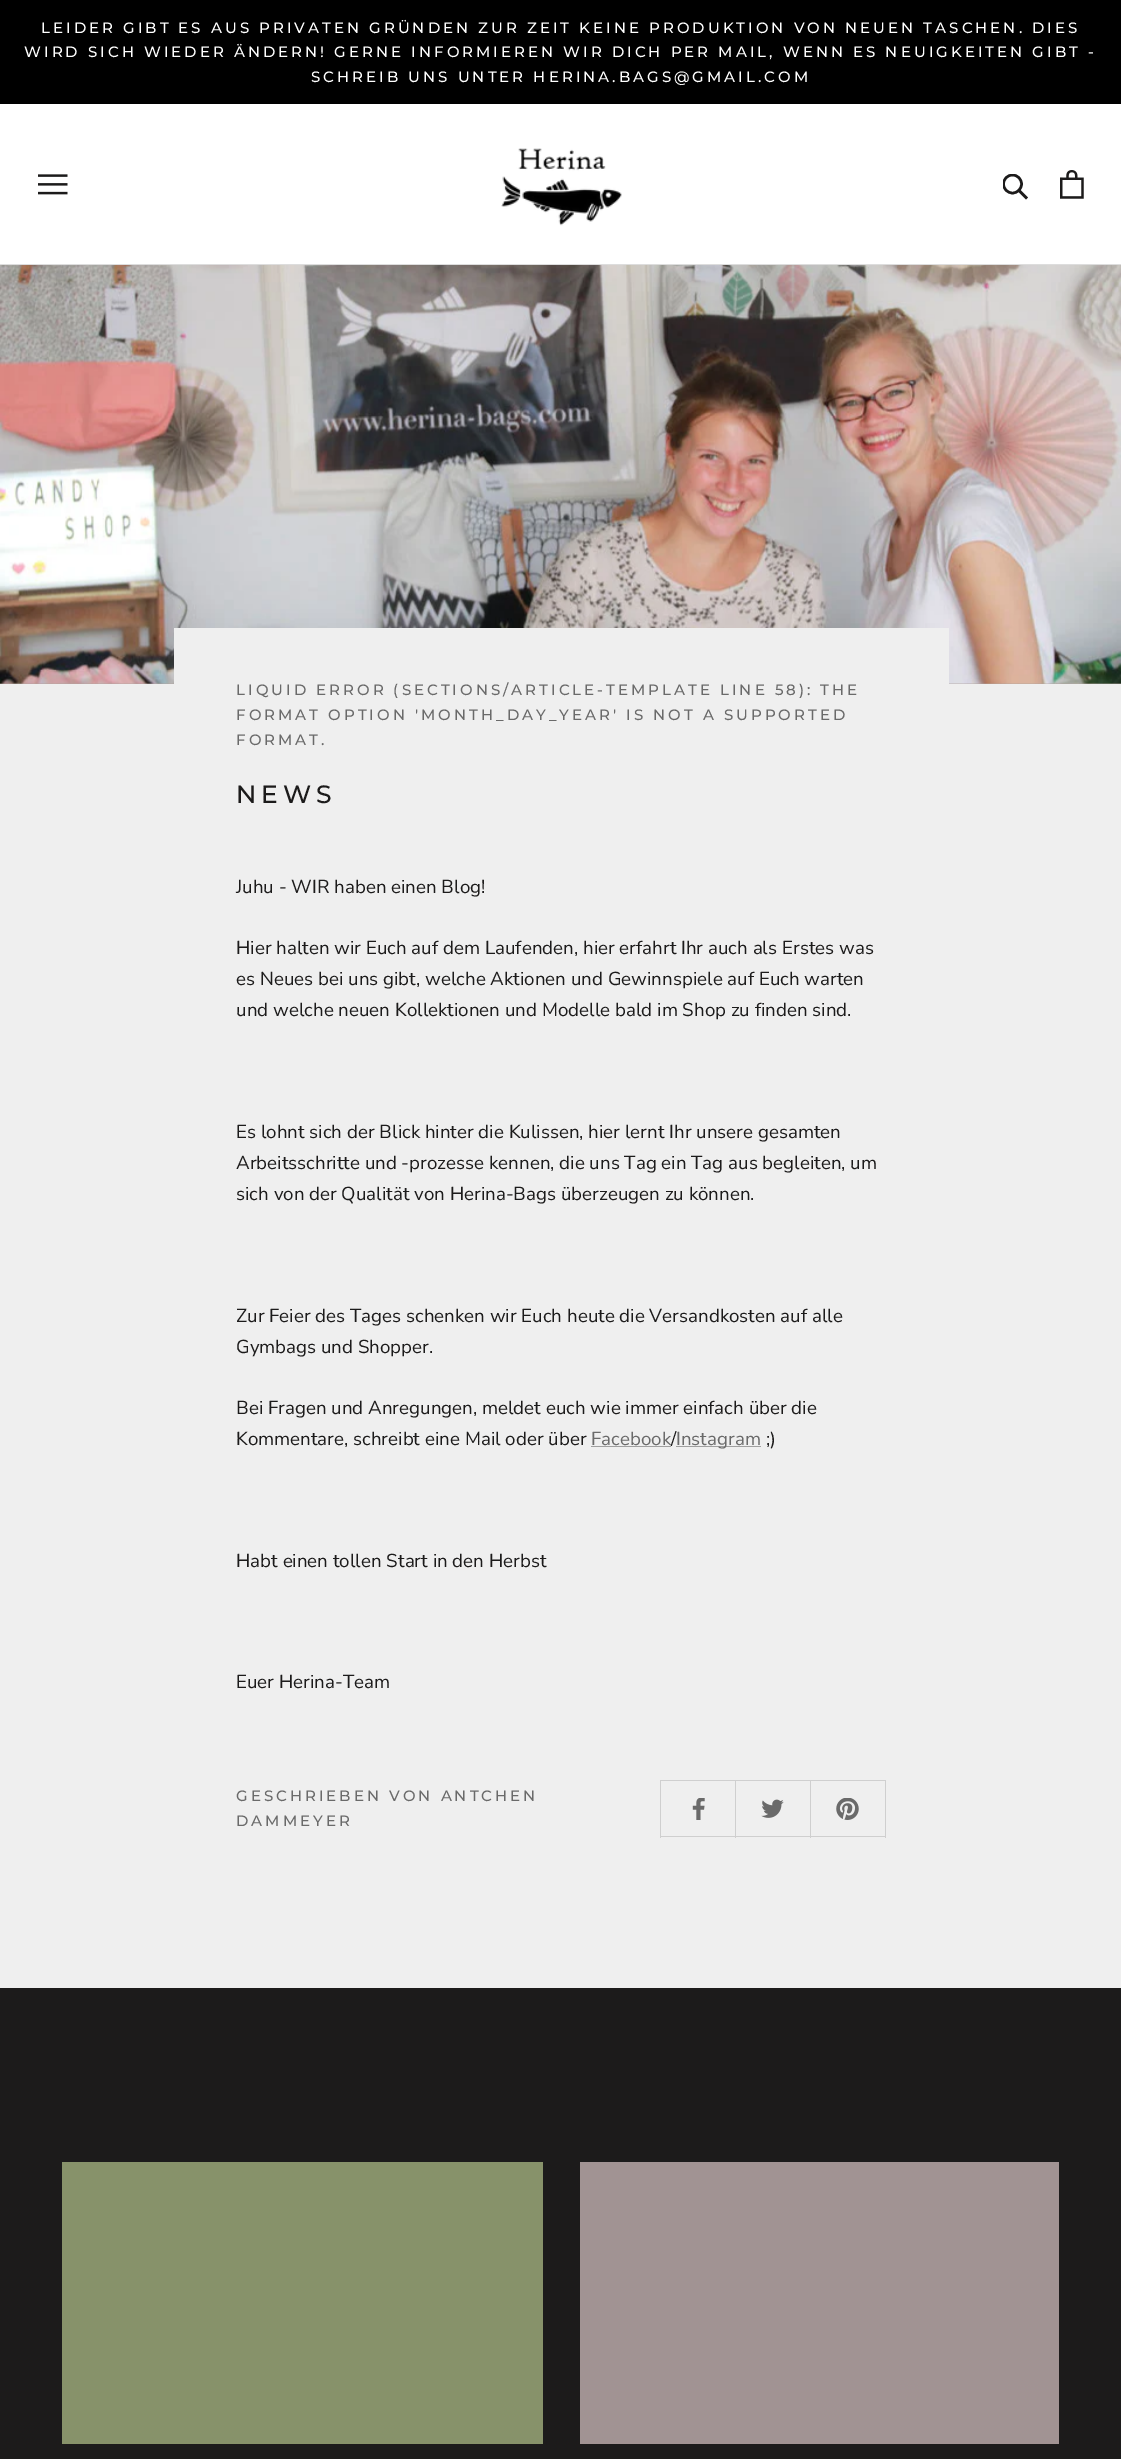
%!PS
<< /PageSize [1121 2459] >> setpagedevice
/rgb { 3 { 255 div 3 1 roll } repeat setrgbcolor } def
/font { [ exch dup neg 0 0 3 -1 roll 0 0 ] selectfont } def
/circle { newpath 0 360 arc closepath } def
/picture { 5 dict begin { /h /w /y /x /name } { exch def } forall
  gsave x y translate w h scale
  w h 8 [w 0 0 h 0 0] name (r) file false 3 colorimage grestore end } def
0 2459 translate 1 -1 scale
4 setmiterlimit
239 239 239 rgb
0 0 1121 2459 rectfill
[
  [0 0 1121 104 0 0 0]
  [0 104 1121 160 255 255 255]
  [0 264 1121 1 221 221 221]
] { aload pop rgb rectfill } forall
(img/1.rgb) 38 174 30 21 picture
(img/2.rgb) 501 148 121 78 picture
28 27 27 rgb
2.5 setlinewidth
2 setlinecap
1026 197.5 moveto 1019 190.5 lineto stroke
gsave
1003 174 26 26 rectclip
0 setlinecap
1012.5 184 9 circle stroke
grestore
(img/3.rgb) 1060 170 24 29 picture
176 163 158 rgb
0 683 1121 1 rectfill
(img/4.rgb) 0 265 1121 419 picture
[
  [174 628 775 56 239 239 239]
  [591 1446 80 1 159 159 159]
  [810 1780 76 1 207 207 207]
  [885 1780 1 58 207 207 207]
  [810 1836 76 1 207 207 207]
  [810 1780 1 58 207 207 207]
  [735 1780 76 1 207 207 207]
  [735 1836 76 1 207 207 207]
  [735 1780 1 58 207 207 207]
  [660 1780 76 1 207 207 207]
  [660 1836 76 1 207 207 207]
  [660 1780 1 58 207 207 207]
] { aload pop rgb rectfill } forall
(img/5.rgb) 692 1798 13 22 picture
(img/6.rgb) 761 1799 23 19 picture
(img/7.rgb) 836 1798 23 22 picture
[
  [0 1988 1121 471 28 27 27]
  [62 2162 481 282 135 146 106]
  [580 2162 479 282 161 147 147]
] { aload pop rgb rectfill } forall
/Montserrat-Medium 15 font
255 255 255 rgb
41 33 moveto 3 0 (LEIDER GIBT ES AUS PRIVATEN GRÜNDEN ZUR ZEIT KEINE PRODUKTION VON NEUEN TASCHEN. DIES) ashow
24 57 moveto 3 0 (WIRD SICH WIEDER ÄNDERN! GERNE INFORMIEREN WIR DICH PER MAIL, WENN ES NEUIGKEITEN GIBT -) ashow
311 82 moveto 3 0 (SCHREIB UNS UNTER HERINA.BAGS@GMAIL.COM) ashow
106 106 106 rgb
236 695 moveto 3 0 (LIQUID ERROR \(SECTIONS/ARTICLE-TEMPLATE LINE 58\): THE) ashow
236 720 moveto 3 0 (FORMAT OPTION 'MONTH_DAY_YEAR' IS NOT A SUPPORTED) ashow
236 745 moveto 3 0 (FORMAT.) ashow
/Montserrat-Medium 25 font
28 27 27 rgb
236 803 moveto 5 0 (NEWS) ashow
/NunitoSans-Regular 18.75 font
[
  [(Juhu - WIR haben einen Blog!) 236 893]
  [(Hier halten wir Euch auf dem Laufenden, hier erfahrt Ihr auch als Erstes was) 236 954]
  [(es Neues bei uns gibt, welche Aktionen und Gewinnspiele auf Euch warten) 236 985]
  [(und welche neuen Kollektionen und Modelle bald im Shop zu finden sind.) 236 1016]
  [(Es lohnt sich der Blick hinter die Kulissen, hier lernt Ihr unsere gesamten) 236 1138]
  [(Arbeitsschritte und -prozesse kennen, die uns Tag ein Tag aus begleiten, um) 236 1169]
  [(sich von der Qualität von Herina-Bags überzeugen zu können.) 236 1200]
  [(Zur Feier des Tages schenken wir Euch heute die Versandkosten auf alle) 236 1322]
  [(Gymbags und Shopper.) 236 1353]
  [(Bei Fragen und Anregungen, meldet euch wie immer einfach über die) 236 1414]
  [(Kommentare, schreibt eine Mail oder über) 236 1445]
] { aload pop moveto show } forall
106 106 106 rgb
591 1445 moveto (Facebook) show
28 27 27 rgb
671 1445 moveto (/) show
159 159 159 rgb
676 1446 85 1 rectfill
106 106 106 rgb
676 1445 moveto (Instagram) show
28 27 27 rgb
[
  [(;\)) 766 1445]
  [(Habt einen tollen Start in den Herbst) 236 1567]
  [(Euer Herina-Team) 236 1688]
] { aload pop moveto show } forall
/Montserrat-Medium 15 font
106 106 106 rgb
236 1801 moveto 3 0 (GESCHRIEBEN VON ANTCHEN) ashow
236 1826 moveto 3 0 (DAMMEYER) ashow
showpage
